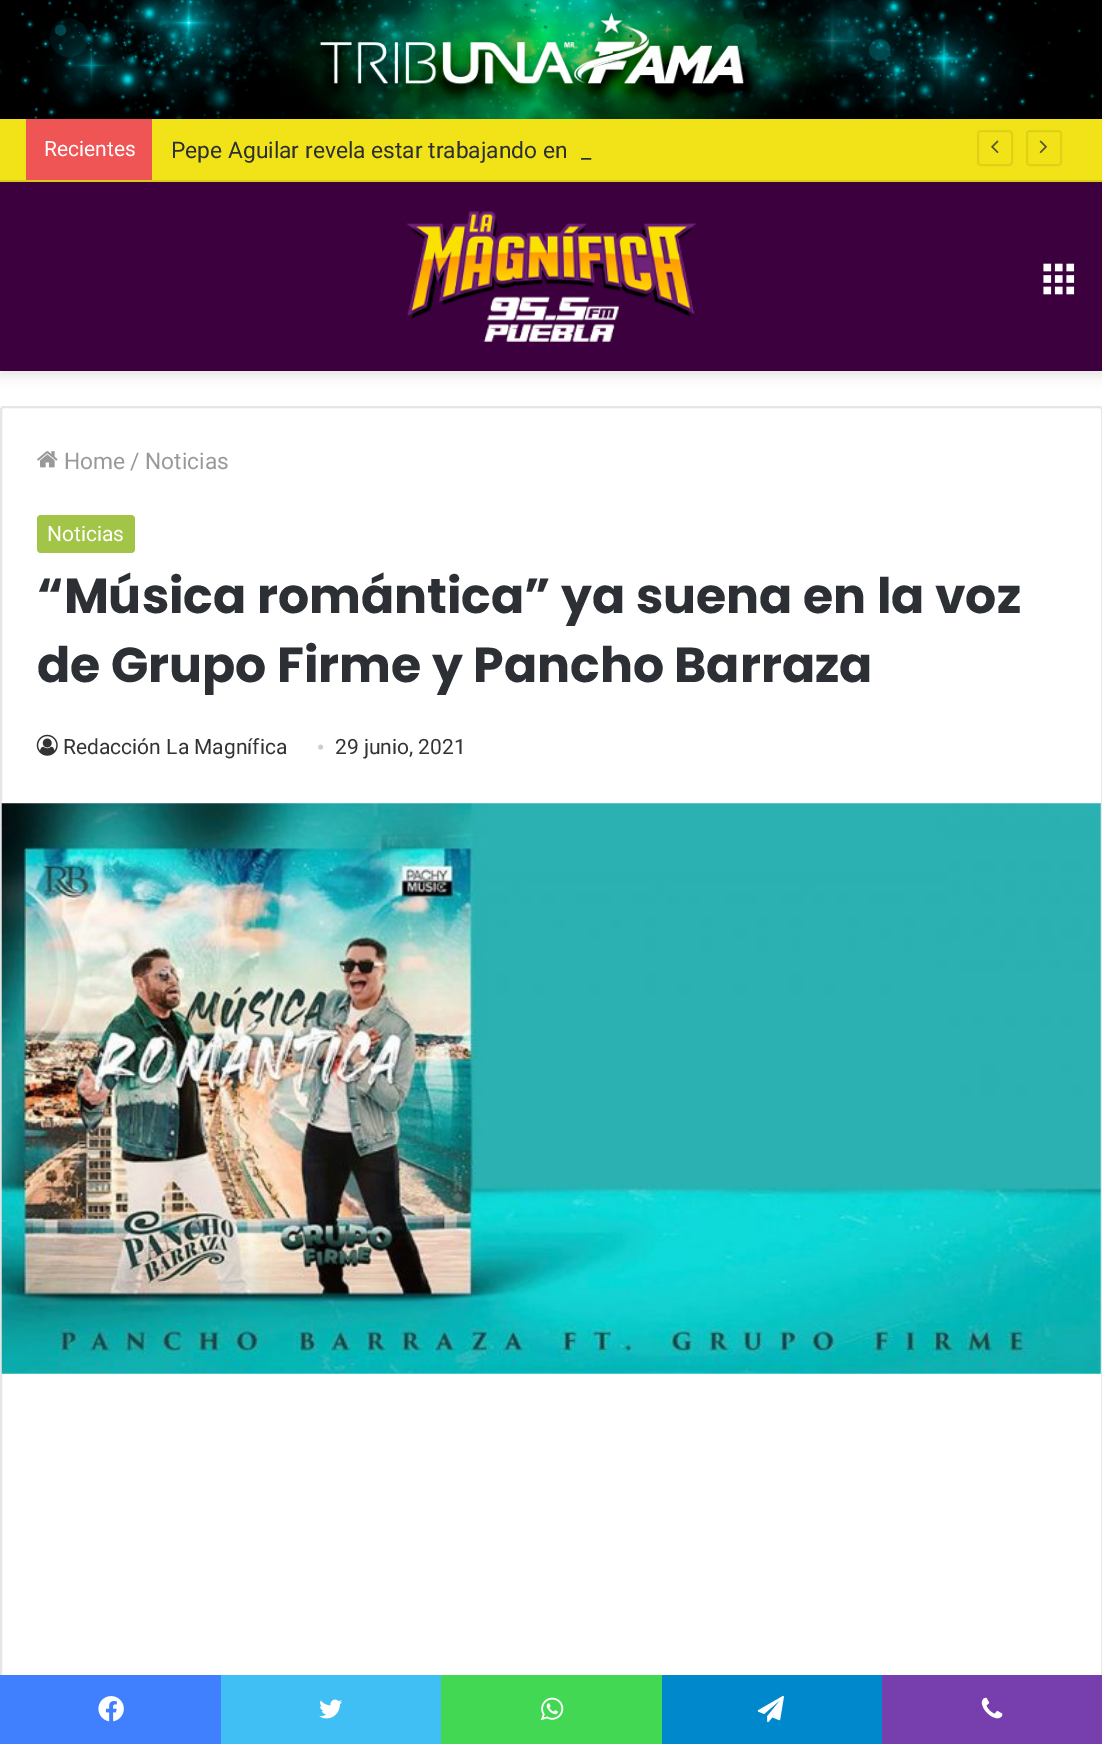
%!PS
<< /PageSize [1102 1744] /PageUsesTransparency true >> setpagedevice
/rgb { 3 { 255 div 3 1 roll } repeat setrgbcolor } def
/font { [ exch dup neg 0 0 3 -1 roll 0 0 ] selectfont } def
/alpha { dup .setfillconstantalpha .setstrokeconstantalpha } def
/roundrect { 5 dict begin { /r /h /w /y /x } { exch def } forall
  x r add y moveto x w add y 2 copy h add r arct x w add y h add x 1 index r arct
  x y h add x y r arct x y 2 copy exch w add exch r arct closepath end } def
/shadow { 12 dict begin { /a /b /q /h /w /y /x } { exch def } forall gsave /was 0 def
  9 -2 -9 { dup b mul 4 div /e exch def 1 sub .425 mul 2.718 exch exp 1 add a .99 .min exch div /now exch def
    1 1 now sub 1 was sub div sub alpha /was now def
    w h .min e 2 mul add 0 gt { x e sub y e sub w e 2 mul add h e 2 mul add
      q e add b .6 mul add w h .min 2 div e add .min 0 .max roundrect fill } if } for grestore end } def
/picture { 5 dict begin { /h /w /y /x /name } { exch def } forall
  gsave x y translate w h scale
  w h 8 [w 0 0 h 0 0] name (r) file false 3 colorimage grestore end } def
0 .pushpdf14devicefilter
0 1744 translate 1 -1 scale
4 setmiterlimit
255 255 255 rgb
0 0 1102 1744 rectfill
(img/1.rgb) 0 0 1102 119 picture
0 0 0 rgb
0 187 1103 189 0 6 0.1 shadow
[
  [0 119 1102 61 241 227 24]
  [0 180 1102 2 217 204 22]
  [26 119 126 61 240 85 85]
] { aload pop rgb rectfill } forall
222 209 22 rgb
2 setlinewidth
978 131 34 34 3 roundrect stroke
(img/2.rgb) 991 140 8 14 picture
1027 131 34 34 3 roundrect stroke
(img/3.rgb) 1039 140 8 14 picture
59 0 61 rgb
0 182 1102 189 rectfill
(img/4.rgb) 406 211 291 131 picture
(img/5.rgb) 1043 263 32 32 picture
230 230 230 rgb
1 407 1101 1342 3 roundrect stroke
(img/6.rgb) 37 451 21 17 picture
162 197 71 rgb
37 515 98 38 4 roundrect fill
(img/7.rgb) 36 734 22 22 picture
(img/8.rgb) 1 803 1100 571 picture
64 128 255 rgb
0 1675 221 69 rectfill
(img/9.rgb) 98 1696 26 26 picture
64 191 245 rgb
221 1675 220 69 rectfill
(img/10.rgb) 319 1699 23 20 picture
67 216 84 rgb
441 1675 221 69 rectfill
(img/11.rgb) 540 1697 24 24 picture
0 136 204 rgb
662 1675 220 69 rectfill
(img/12.rgb) 757 1695 27 28 picture
119 62 173 rgb
882 1675 220 69 rectfill
(img/13.rgb) 981 1697 22 22 picture
/Roboto-Regular 21 font
255 255 255 rgb
44 156 moveto (Recientes) show
/Roboto-Regular 22.75 font
44 47 52 rgb
171 158 moveto (Pepe Aguilar revela estar trabajando en) show
581 158 moveto (_) show
153 153 153 rgb
[
  [(Home) 64 469]
  [(/) 130 469]
  [(Noticias) 145 469]
] { aload pop moveto show } forall
/Roboto-Regular 21 font
255 255 255 rgb
47 541 moveto (Noticias) show
/Poppins-Bold 49 font
44 47 52 rgb
37 613 moveto (“Música romántica” ya suena en la voz) show
37 682 moveto (de Grupo Firme y Pancho Barraza) show
/Roboto-Regular 21 font
51 51 51 rgb
63 754 moveto (Redacción La Magnífica) show
/LiberationSerif-Regular 21 font
204 204 204 rgb
317 754 moveto (•) show
/Roboto-Regular 21 font
51 51 51 rgb
335 754 moveto (29 junio, 2021) show
.poppdf14devicefilter showpage
